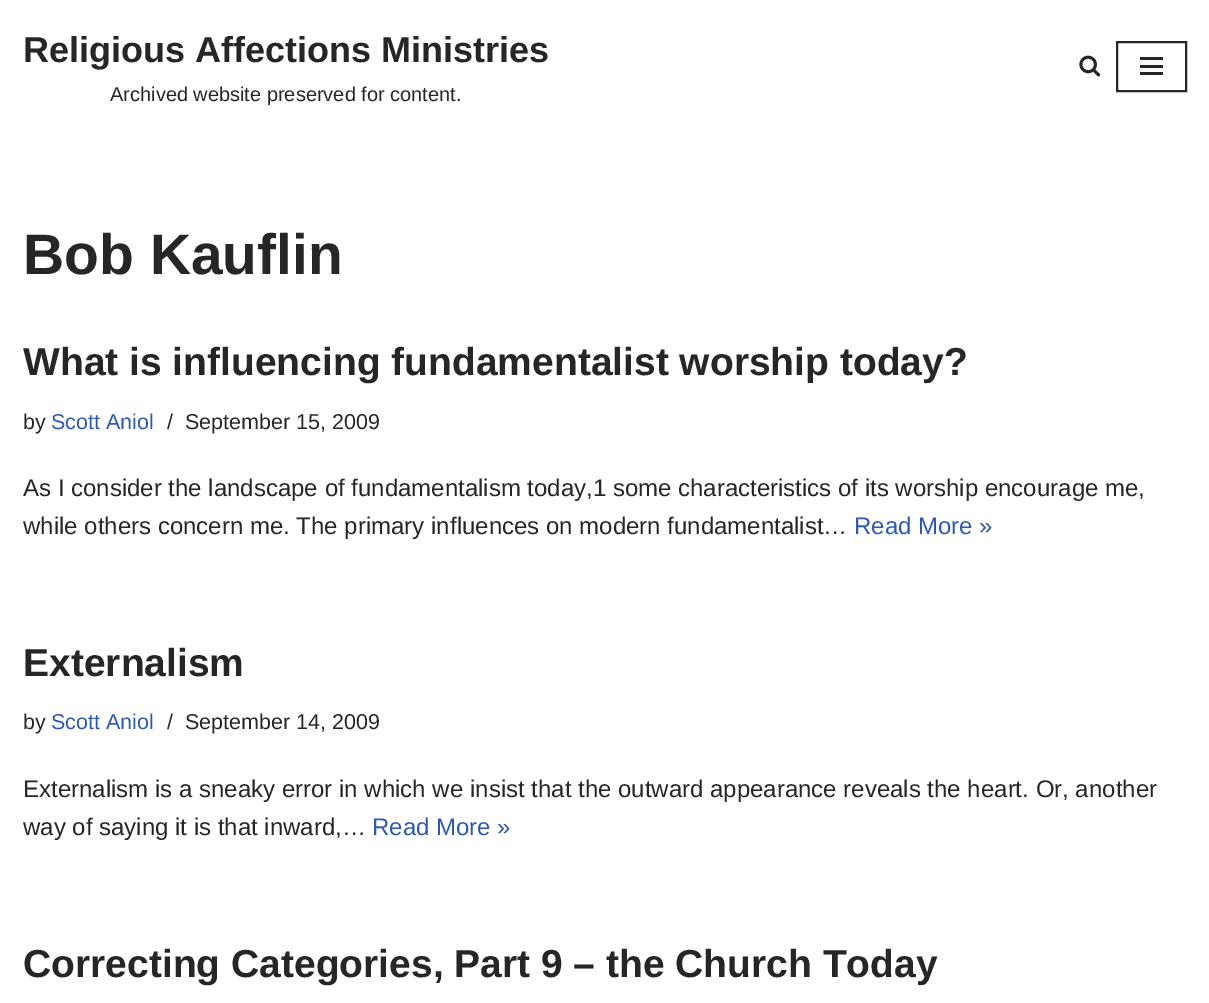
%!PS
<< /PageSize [1209 1003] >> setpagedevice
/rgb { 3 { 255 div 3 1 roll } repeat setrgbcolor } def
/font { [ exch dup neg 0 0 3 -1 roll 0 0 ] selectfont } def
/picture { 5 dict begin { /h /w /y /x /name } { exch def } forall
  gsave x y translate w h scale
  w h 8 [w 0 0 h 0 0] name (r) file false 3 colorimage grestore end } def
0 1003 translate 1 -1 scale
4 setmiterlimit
255 255 255 rgb
0 0 1209 1003 rectfill
(img/1.rgb) 1079 55 22 22 picture
39 38 38 rgb
2 setlinewidth
1117 42 69 49 rectstroke
[
  [1140 57 23 3 39 38 38]
  [1140 65 23 3 39 38 38]
  [1140 72 23 3 39 38 38]
] { aload pop rgb rectfill } forall
/LiberationSans-Bold 36 font
23 62 moveto (Religious Affections Ministries) show
/LiberationSans-Regular 20 font
110 101 moveto (Archived website preserved for content.) show
/LiberationSans-Bold 57 font
23 274 moveto (Bob Kauflin) show
/LiberationSans-Bold 39 font
23 375 moveto (What is influencing fundamentalist worship today?) show
/LiberationSans-Regular 21.5 font
23 429 moveto (by) show
47 90 174 rgb
51 429 moveto (Scott Aniol) show
39 38 38 rgb
167 429 moveto (/) show
185 429 moveto (September 15, 2009) show
/LiberationSans-Regular 24 font
23 496 moveto (As I consider the landscape of fundamentalism today,1 some characteristics of its worship encourage me,) show
23 534 moveto (while others concern me. The primary influences on modern fundamentalist…) show
47 90 174 rgb
854 534 moveto (Read More ») show
/LiberationSans-Bold 39 font
39 38 38 rgb
23 676 moveto (Externalism) show
/LiberationSans-Regular 21.5 font
23 729 moveto (by) show
47 90 174 rgb
51 729 moveto (Scott Aniol) show
39 38 38 rgb
167 729 moveto (/) show
185 729 moveto (September 14, 2009) show
/LiberationSans-Regular 24 font
23 797 moveto (Externalism is a sneaky error in which we insist that the outward appearance reveals the heart. Or, another) show
23 835 moveto (way of saying it is that inward,…) show
47 90 174 rgb
372 835 moveto (Read More ») show
/LiberationSans-Bold 39 font
39 38 38 rgb
23 977 moveto (Correcting Categories, Part 9 – the Church Today) show
showpage
